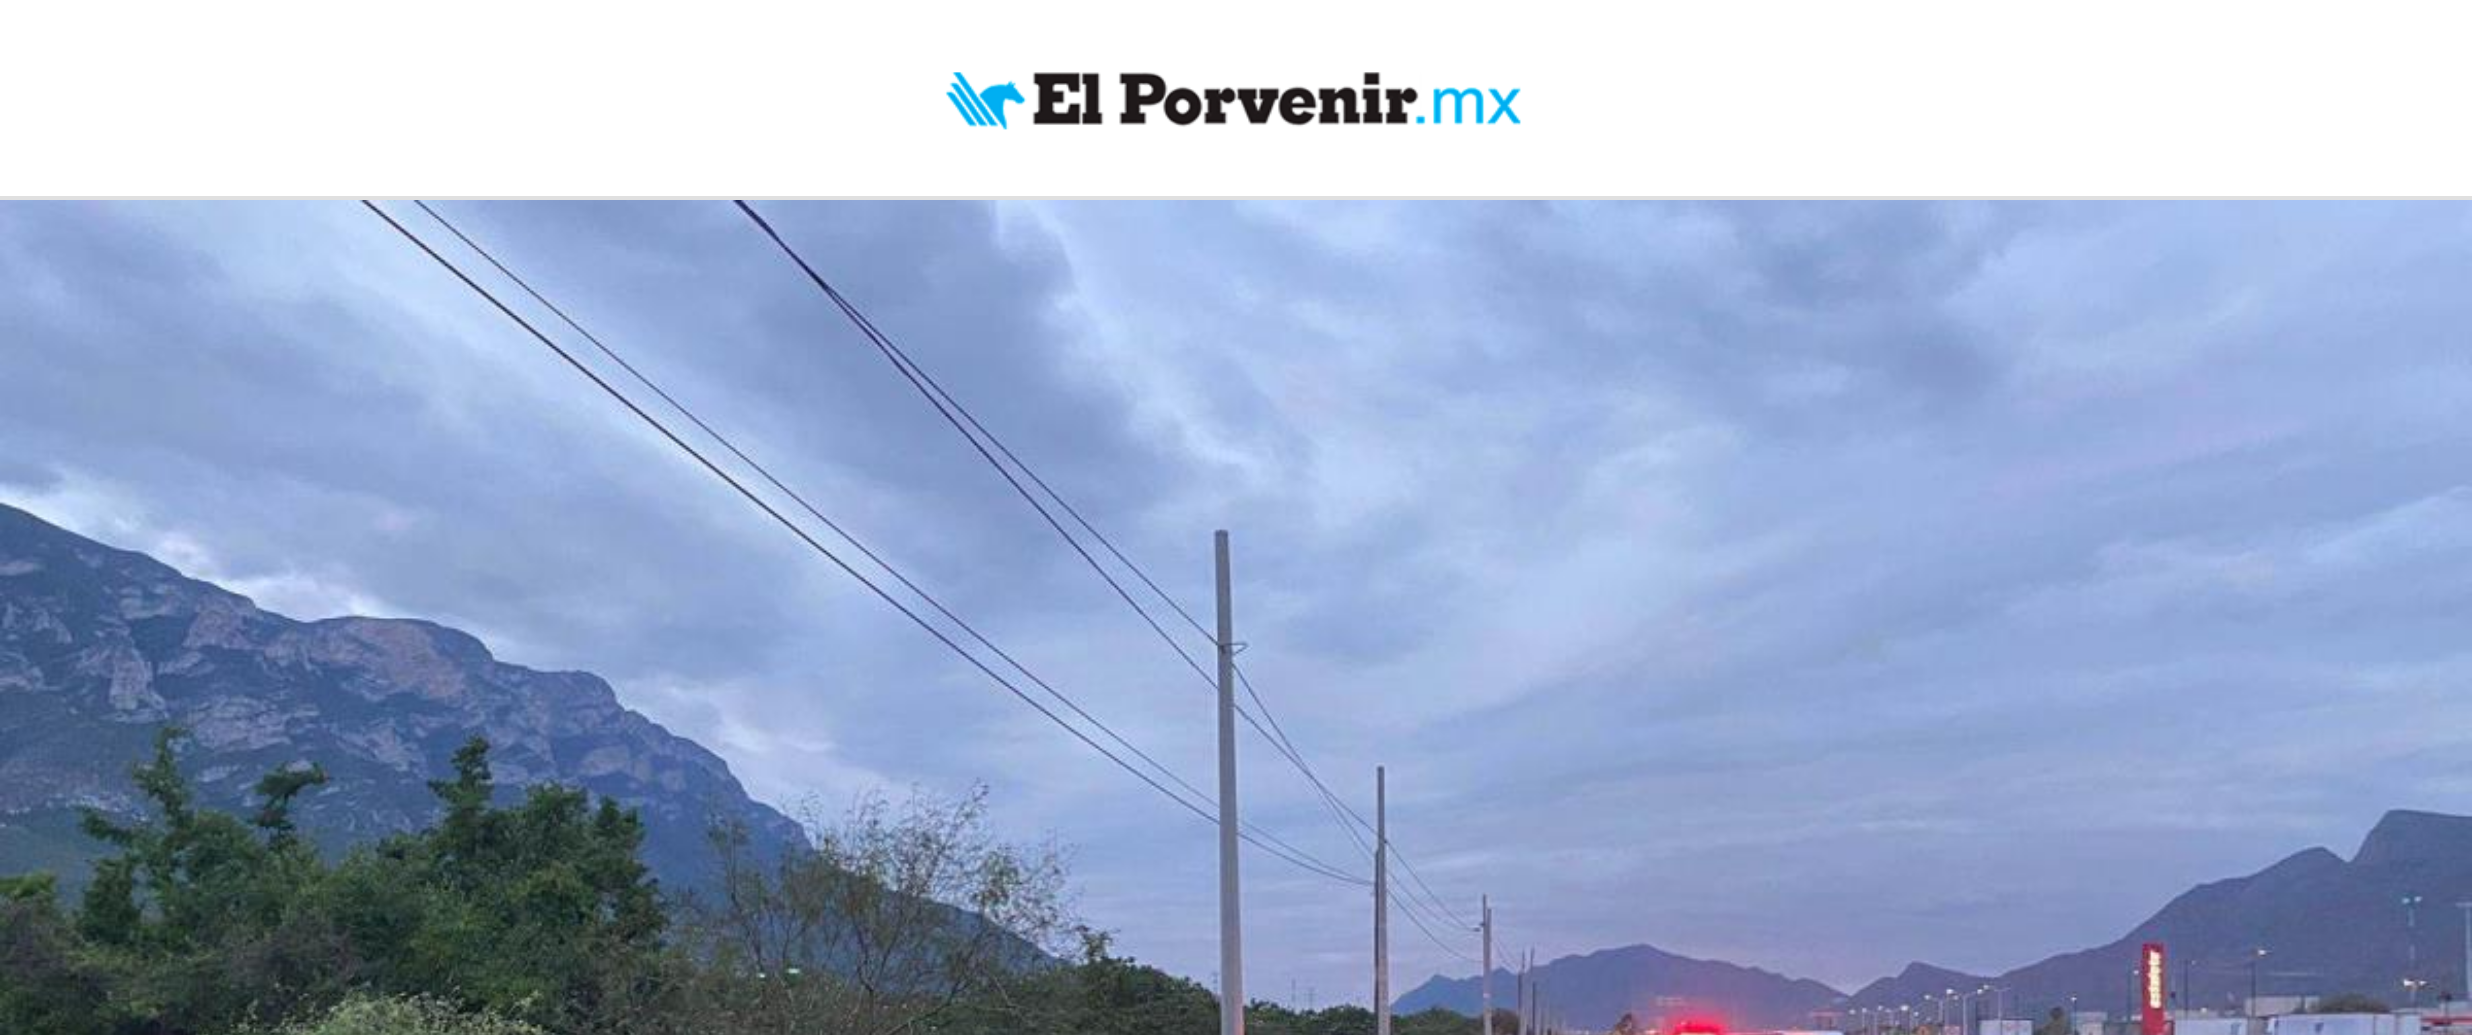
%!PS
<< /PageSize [2472 1035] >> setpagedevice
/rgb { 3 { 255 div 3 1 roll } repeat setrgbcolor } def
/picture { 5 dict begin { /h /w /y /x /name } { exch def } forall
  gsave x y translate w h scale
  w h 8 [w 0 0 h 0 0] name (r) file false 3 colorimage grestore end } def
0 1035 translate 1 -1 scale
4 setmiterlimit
255 255 255 rgb
0 0 2472 1035 rectfill
224 224 224 rgb
0 196 2472 4 rectfill
(img/1.rgb) 944 72 577 58 picture
(img/2.rgb) 0 200 2472 835 picture
showpage
